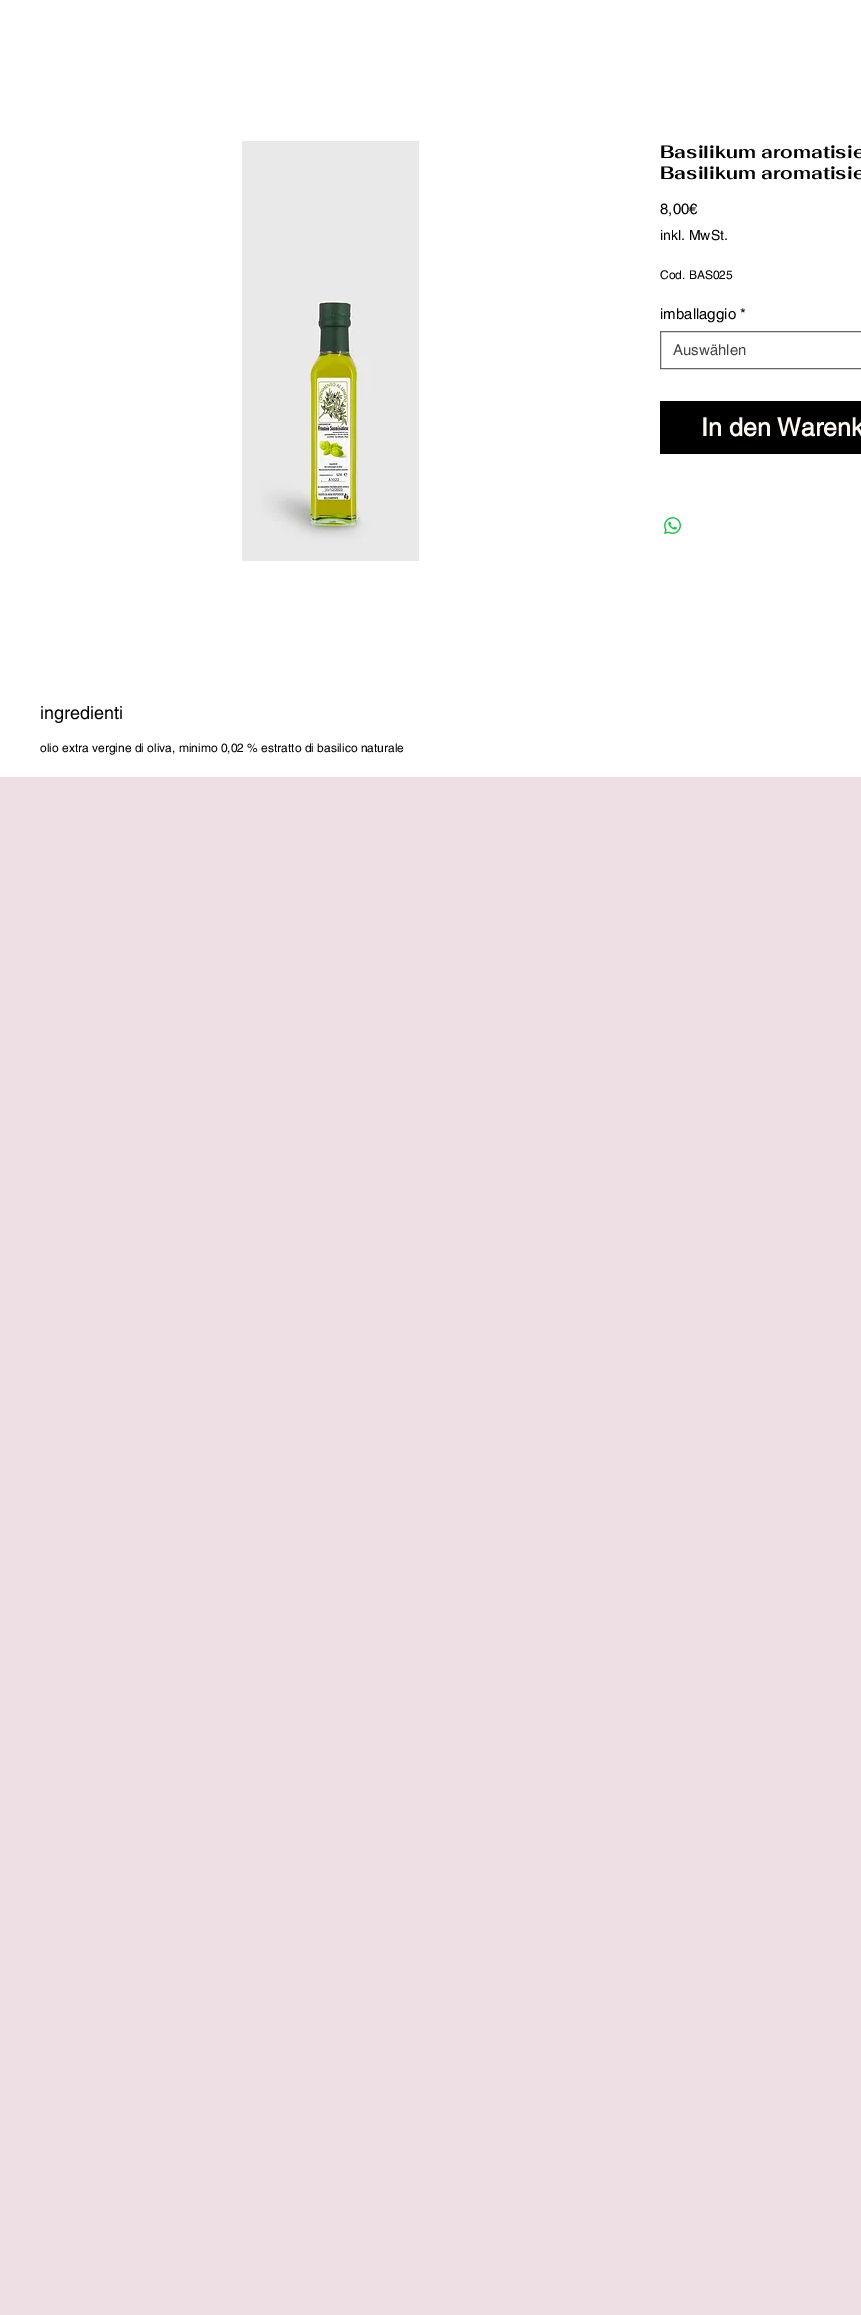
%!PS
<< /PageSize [861 2315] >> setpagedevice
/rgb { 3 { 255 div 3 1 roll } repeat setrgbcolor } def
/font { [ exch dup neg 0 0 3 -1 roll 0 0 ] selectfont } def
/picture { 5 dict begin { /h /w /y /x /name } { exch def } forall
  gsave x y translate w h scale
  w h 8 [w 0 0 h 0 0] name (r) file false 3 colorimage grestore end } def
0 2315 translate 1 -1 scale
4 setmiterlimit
237 223 228 rgb
0 0 861 2315 rectfill
255 255 255 rgb
0 0 861 777 rectfill
(img/1.rgb) 242 141 177 420 picture
102 102 102 rgb
660.5 331.5 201 37 rectstroke
0 0 0 rgb
660 401 201 53 rectfill
(img/2.rgb) 664 517 17 17 picture
/Fahkwang-Bold 18 font
660 158 moveto (Basilikum aromatisie) show
660 179 moveto (Basilikum aromatisie) show
/helvetica-Regular 15 font
660 214 moveto (8,00€) show
/helvetica-Regular 14 font
660 240 moveto (inkl. MwSt.) show
/helvetica-Regular 12 font
660 279 moveto (Cod. BAS025) show
/helvetica-Regular 15 font
660 319 moveto (imballaggio *) show
68 68 68 rgb
673 355 moveto (Auswählen) show
/helvetica-Bold 25 font
255 248 241 rgb
701 436 moveto (In den Warenk) show
/helvetica-Regular 18 font
0 0 0 rgb
40 719 moveto (ingredienti) show
/helvetica-Regular 12 font
40 752 moveto (olio extra vergine di oliva, minimo 0,02 % estratto di basilico naturale) show
showpage
